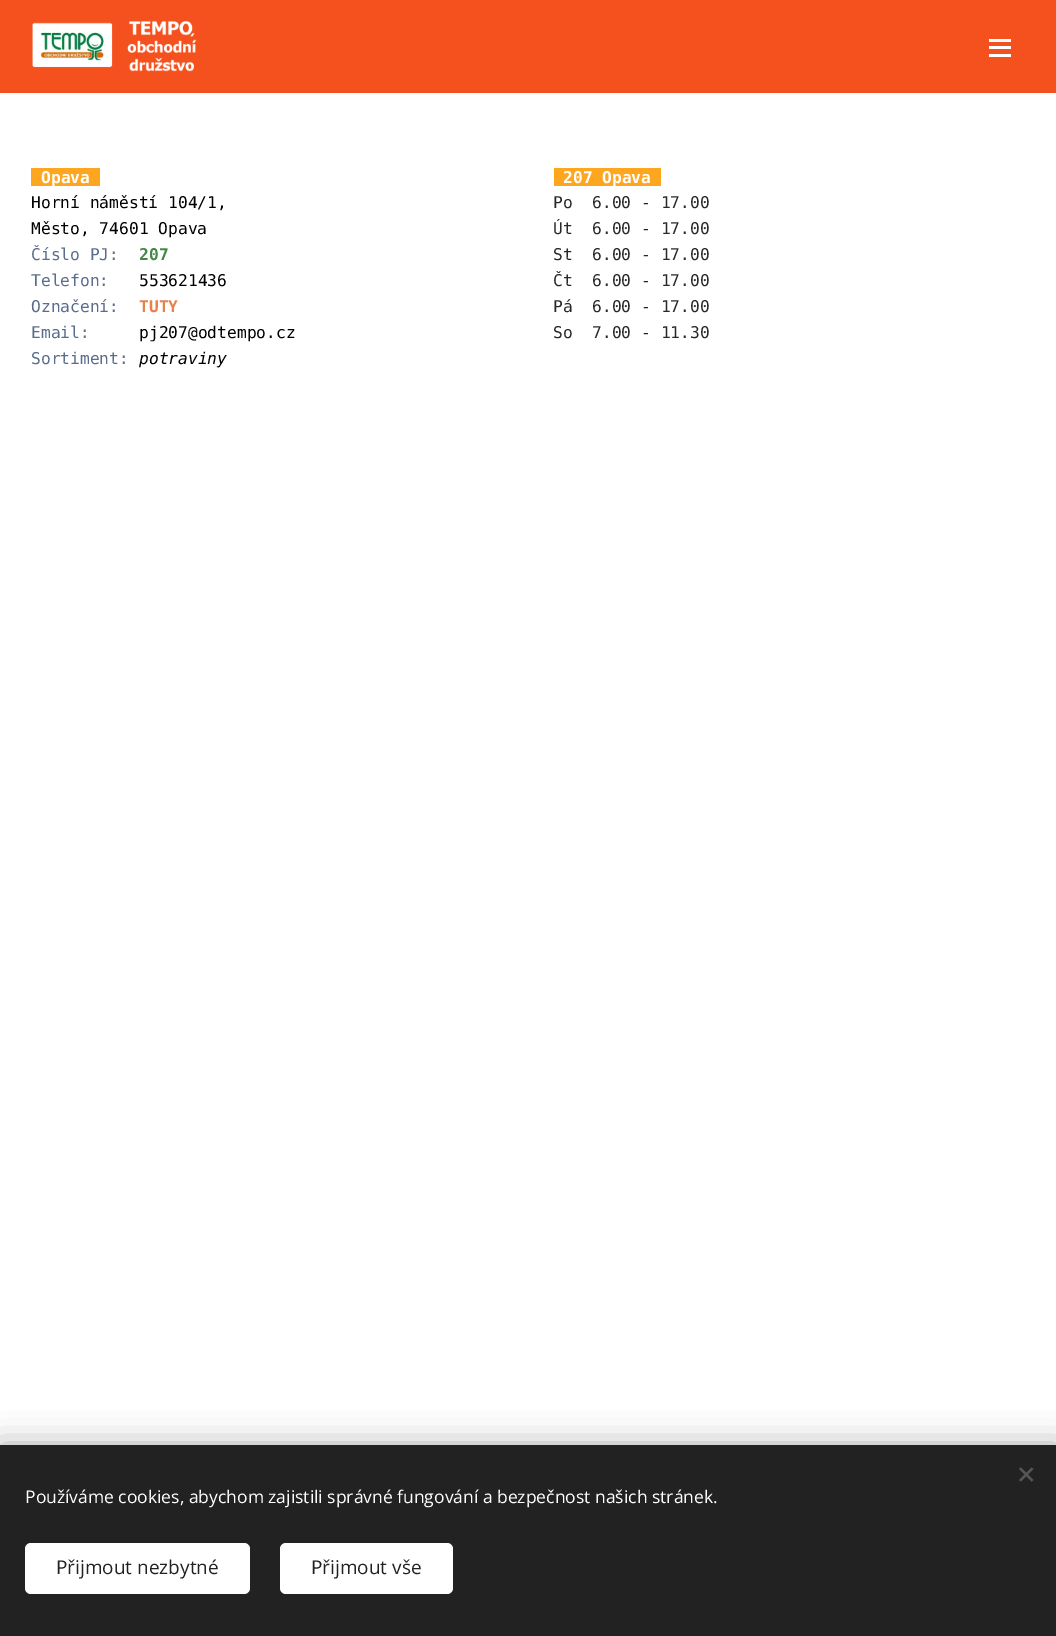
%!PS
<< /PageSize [1056 1636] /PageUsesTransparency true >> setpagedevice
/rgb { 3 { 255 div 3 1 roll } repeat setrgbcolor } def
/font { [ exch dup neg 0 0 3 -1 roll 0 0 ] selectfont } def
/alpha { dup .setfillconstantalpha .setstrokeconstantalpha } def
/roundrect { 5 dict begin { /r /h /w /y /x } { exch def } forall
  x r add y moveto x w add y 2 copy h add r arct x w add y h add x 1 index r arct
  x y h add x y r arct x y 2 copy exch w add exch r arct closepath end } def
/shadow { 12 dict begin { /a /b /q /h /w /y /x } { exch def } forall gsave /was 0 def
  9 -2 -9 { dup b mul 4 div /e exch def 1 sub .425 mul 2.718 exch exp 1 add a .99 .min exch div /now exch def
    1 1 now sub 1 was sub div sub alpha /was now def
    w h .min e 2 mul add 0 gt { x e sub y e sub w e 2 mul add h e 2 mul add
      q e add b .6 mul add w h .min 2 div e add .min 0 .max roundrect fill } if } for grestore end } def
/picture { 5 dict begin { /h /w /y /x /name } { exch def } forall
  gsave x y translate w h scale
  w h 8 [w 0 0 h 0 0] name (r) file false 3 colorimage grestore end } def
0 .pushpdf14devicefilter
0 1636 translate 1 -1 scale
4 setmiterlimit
255 255 255 rgb
0 0 1056 1636 rectfill
244 81 30 rgb
0 0 1056 93 rectfill
(img/1.rgb) 32 21 165 51 picture
[
  [989 46 22 3 255 255 255]
  [989 39 22 3 255 255 255]
  [989 54 22 3 255 255 255]
  [31 168 69 18 255 166 33]
  [554 168 107 18 255 166 33]
] { aload pop rgb rectfill } forall
0 0 0 rgb
0 1445 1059 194 0 15.5 0.33 shadow
34 34 34 rgb
0 1445 1056 191 rectfill
85 85 85 rgb
1019 1480 moveto 1031.5 1467.5 lineto 1033.5 1469 lineto 1021 1481.5 lineto closepath fill
1021 1467.5 moveto 1033.5 1480 lineto 1031.5 1481.5 lineto 1019 1469 lineto closepath fill
255 255 255 rgb
25 1543 225 51 6 roundrect fill
280 1543 173 51 6 roundrect fill
/DejaVuSansMono-Bold 16.25 font
41 183 moveto (Opava) show
/DejaVuSansMono-Regular 16.25 font
0 0 0 rgb
31 208 moveto (Horní náměstí 104/1,) show
31 234 moveto (Město, 74601 Opava) show
90 109 140 rgb
31 260 moveto (Číslo PJ:) show
/DejaVuSansMono-Bold 16.25 font
70 135 71 rgb
139 260 moveto (207) show
/DejaVuSansMono-Regular 16.25 font
90 109 140 rgb
31 286 moveto (Telefon:) show
0 0 0 rgb
139 286 moveto (553621436) show
90 109 140 rgb
31 312 moveto (Označení:) show
/DejaVuSansMono-Bold 16.25 font
231 130 74 rgb
139 312 moveto (TUTY) show
/DejaVuSansMono-Regular 16.25 font
90 109 140 rgb
31 338 moveto (Email:) show
0 0 0 rgb
139 338 moveto (pj207@odtempo.cz) show
90 109 140 rgb
31 364 moveto (Sortiment:) show
/DejaVuSansMono-Italic 16.25 font
0 0 0 rgb
139 364 moveto (potraviny) show
/DejaVuSansMono-Bold 16.25 font
255 255 255 rgb
563 183 moveto (207 Opava) show
/DejaVuSansMono-Regular 16.25 font
40 40 40 rgb
[
  [(Po  6.00 - 17.00) 553 208]
  [(Út  6.00 - 17.00) 553 234]
  [(St  6.00 - 17.00) 553 260]
  [(Čt  6.00 - 17.00) 553 286]
  [(Pá  6.00 - 17.00) 553 312]
  [(So  7.00 - 11.30) 553 338]
] { aload pop moveto show } forall
/OpenSans-Regular 17.5 font
255 255 255 rgb
25 1503 moveto (Používáme cookies, abychom zajistili správné fungování a bezpečnost našich stránek.) show
/OpenSans-Regular 19 font
34 34 34 rgb
56 1574 moveto (Přijmout nezbytné) show
311 1574 moveto (Přijmout vše) show
.poppdf14devicefilter showpage
